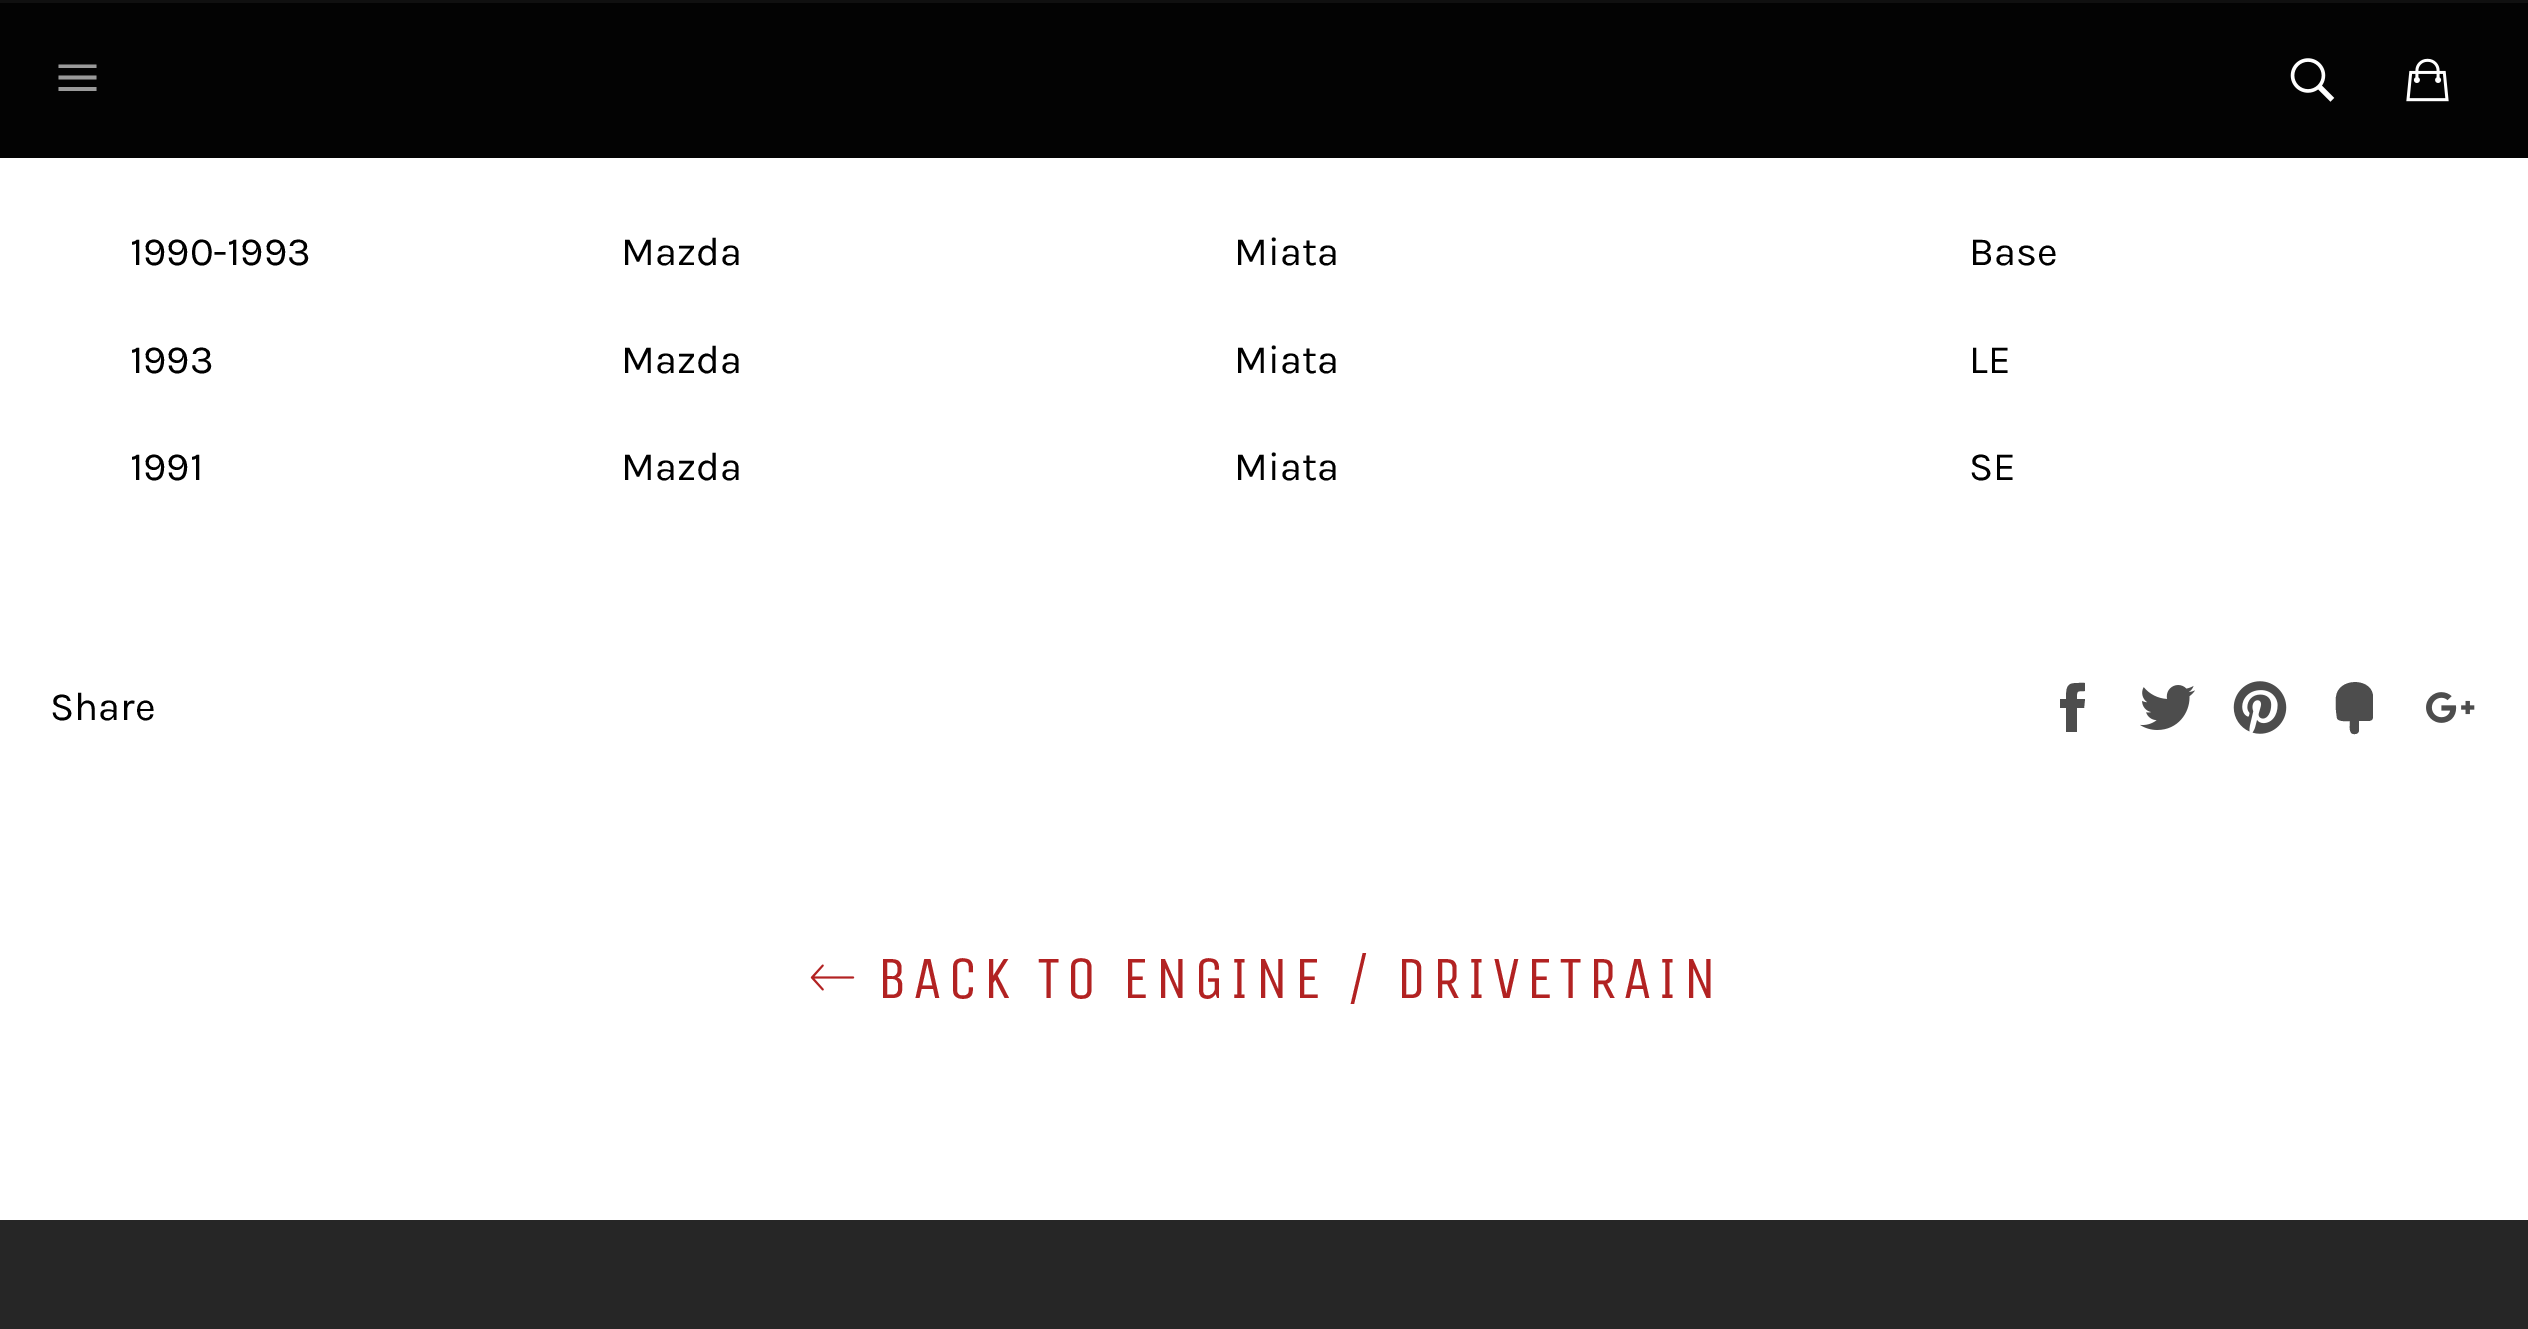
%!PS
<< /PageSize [2528 1329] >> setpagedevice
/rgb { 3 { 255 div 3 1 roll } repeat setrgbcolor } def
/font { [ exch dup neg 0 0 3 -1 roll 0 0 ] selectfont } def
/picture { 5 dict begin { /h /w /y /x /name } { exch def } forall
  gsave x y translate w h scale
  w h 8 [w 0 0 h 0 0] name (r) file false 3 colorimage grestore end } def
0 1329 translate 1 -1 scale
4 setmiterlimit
255 255 255 rgb
0 0 2528 1329 rectfill
3 3 3 rgb
0 3 2528 155 rectfill
16 16 16 rgb
0 0 2528 3 rectfill
154 154 154 rgb
58.5 75.5 moveto 96.5 75.5 lineto 96.5 79.5 lineto 58.5 79.5 lineto closepath 58.5 64.5 moveto 96.5 64.5 lineto 96.5 68 lineto 58.5 68 lineto closepath 58.5 87 moveto 96.5 87 lineto 96.5 91 lineto 58.5 91 lineto closepath fill
(img/1.rgb) 2290 58 45 44 picture
(img/2.rgb) 2406 58 43 44 picture
77 77 77 rgb
2077 699 moveto 2077 691 2076 691 2085 691 curveto 2085 683 lineto 2069 683 2066 682 2066 699 curveto 2060 699 lineto 2060 708 lineto 2066 708 lineto 2066 732 lineto 2077 732 lineto 2077 708 lineto 2084 708 lineto 2085 699 lineto closepath fill
(img/3.rgb) 2140 685 55 45 picture
(img/4.rgb) 2233 681 54 53 picture
2373 697 moveto 2373 679 2343 677 2337 693 curveto 2335 698 2336 705 2336 711 curveto 2337 718 lineto 2338 722 2347 721 2350 721 curveto 2350 725 2348 735 2355 734 curveto 2357 734 2358 733 2359 731 curveto 2359 721 lineto 2367 721 lineto 2373 721 2373 719 2373 714 curveto closepath fill
(img/5.rgb) 2426 692 49 31 picture
(img/6.rgb) 810 964 45 27 picture
38 38 38 rgb
0 1220 2528 109 rectfill
/Karla-Regular 40 font
0 0 0 rgb
[
  [(1990-1993) 130 265]
  [(Mazda) 621 265]
  [(Miata) 1234 265]
  [(Base) 1969 265]
  [(1993) 130 373]
  [(Mazda) 621 373]
  [(Miata) 1234 373]
  [(LE) 1969 373]
  [(1991) 130 480]
  [(Mazda) 621 480]
  [(Miata) 1234 480]
  [(SE) 1969 480]
  [(Share) 50 720]
] { aload pop moveto show } forall
/UnicaOne-Regular 60 font
178 34 34 rgb
877 998 moveto 6 0 (BACK TO ENGINE / DRIVETRAIN) ashow
showpage
